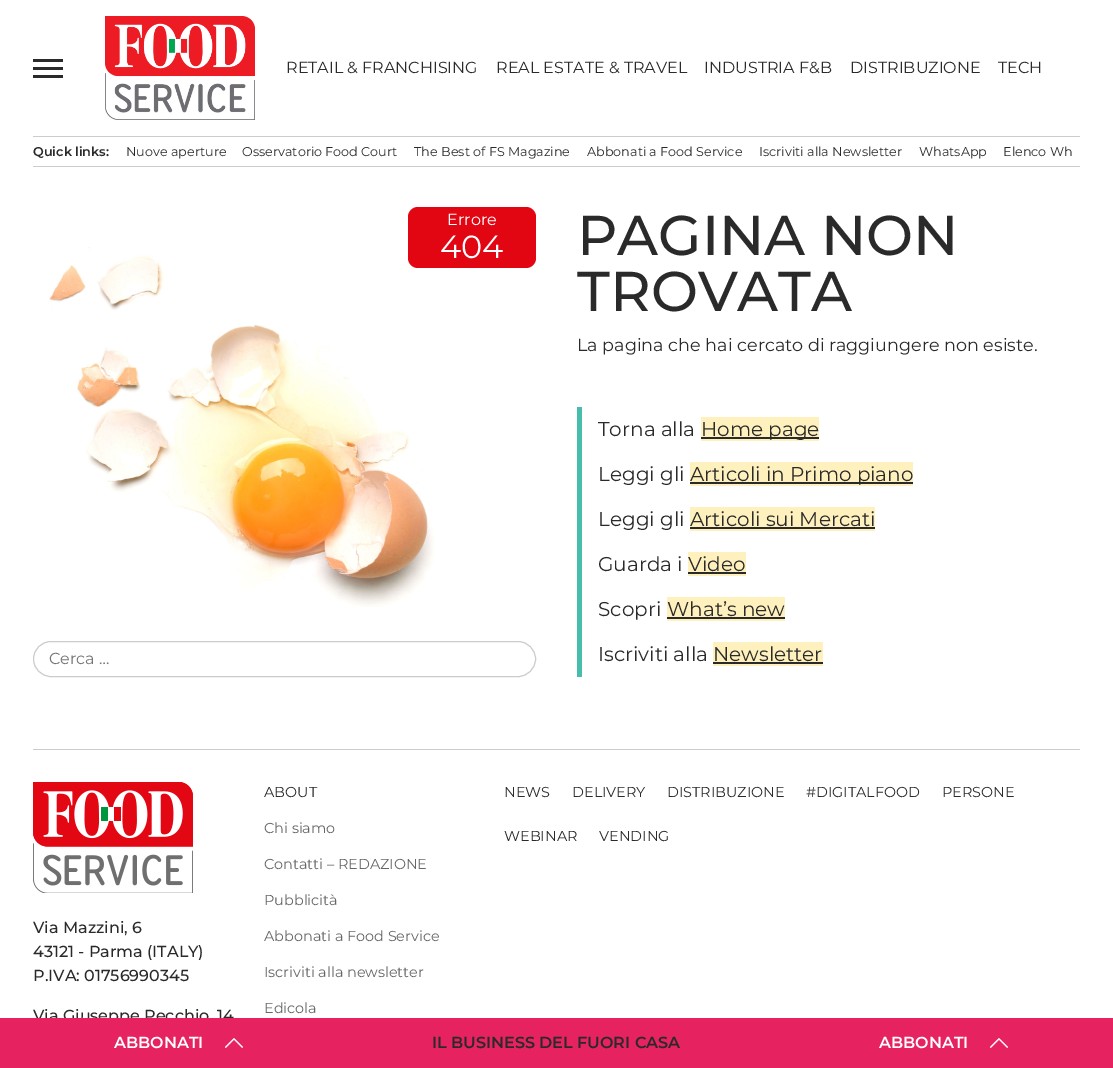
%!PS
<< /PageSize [1113 1068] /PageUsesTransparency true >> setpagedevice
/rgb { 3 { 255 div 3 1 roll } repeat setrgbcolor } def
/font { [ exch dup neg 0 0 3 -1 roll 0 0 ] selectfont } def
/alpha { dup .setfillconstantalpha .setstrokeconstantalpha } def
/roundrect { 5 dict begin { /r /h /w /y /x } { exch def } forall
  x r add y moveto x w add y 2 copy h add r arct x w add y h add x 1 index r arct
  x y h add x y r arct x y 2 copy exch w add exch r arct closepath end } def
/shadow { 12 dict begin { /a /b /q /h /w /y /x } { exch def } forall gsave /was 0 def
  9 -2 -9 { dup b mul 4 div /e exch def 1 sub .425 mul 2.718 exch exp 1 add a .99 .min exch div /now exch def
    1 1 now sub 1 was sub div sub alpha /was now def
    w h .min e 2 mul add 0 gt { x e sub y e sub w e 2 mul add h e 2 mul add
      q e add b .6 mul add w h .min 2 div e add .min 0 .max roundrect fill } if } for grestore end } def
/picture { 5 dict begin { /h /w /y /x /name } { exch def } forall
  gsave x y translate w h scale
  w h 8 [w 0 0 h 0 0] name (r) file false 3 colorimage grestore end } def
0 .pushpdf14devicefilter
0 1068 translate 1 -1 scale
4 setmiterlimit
255 255 255 rgb
0 0 1113 1068 rectfill
[
  [33 67 30 3 42 42 42]
  [33 59 30 3 42 42 42]
  [33 75 30 3 42 42 42]
] { aload pop rgb rectfill } forall
(img/1.rgb) 105 16 150 104 picture
204 204 204 rgb
33 136 1047 1 rectfill
33 166 1047 1 rectfill
gsave
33 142 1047 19 rectclip
255 255 255 rgb
1063 126 33 51 0 10 1 shadow
grestore
(img/2.rgb) 49 247 387 360 picture
226 6 19 rgb
408 207 128 61 10 roundrect fill
204 204 204 rgb
33.5 641.5 502 35 17.5 roundrect stroke
[
  [577 407 5 270 70 189 173]
  [701 417 118 24 255 241 190]
  [701 437 118 2 42 42 42]
  [690 462 223 24 255 241 190]
  [690 482 223 2 42 42 42]
  [690 507 185 24 255 241 190]
  [690 527 185 2 42 42 42]
  [688 552 58 24 255 241 190]
  [688 572 58 2 42 42 42]
  [667 597 118 24 255 241 190]
  [667 617 118 2 42 42 42]
  [713 642 110 24 255 241 190]
  [713 662 110 2 42 42 42]
  [33 749 1047 1 204 204 204]
] { aload pop rgb rectfill } forall
(img/3.rgb) 33 782 160 111 picture
/Montserrat-Regular 16 font
42 42 42 rgb
[
  [(RETAIL & FRANCHISING) 286 73]
  [(REAL ESTATE & TRAVEL) 496 73]
  [(INDUSTRIA F&B) 704 73]
  [(DISTRIBUZIONE) 850 73]
  [(TECH) 998 73]
] { aload pop moveto show } forall
/Montserrat-SemiBold 12.75 font
33 156 moveto (Quick links:) show
/Montserrat-Regular 12.75 font
[
  [(Nuove aperture) 126 156]
  [(Osservatorio Food Court) 242 156]
  [(The Best of FS Magazine) 414 156]
  [(Abbonati a Food Service) 587 156]
  [(Iscriviti alla Newsletter) 759 156]
  [(WhatsApp) 919 156]
  [(Elenco Wh) 1003 156]
] { aload pop moveto show } forall
/Montserrat-Regular 16 font
255 255 255 rgb
447 225 moveto (Errore) show
/Montserrat-Regular 32 font
440 258 moveto (404) show
/Montserrat-Regular 16 font
117 117 117 rgb
49 664 moveto (Cerca …) show
/Montserrat-Medium 56 font
42 42 42 rgb
577 255 moveto (PAGINA NON) show
577 311 moveto (TROVATA) show
/Montserrat-Regular 17.6 font
577 351 moveto (La pagina che hai cercato di raggiungere non esiste.) show
/Montserrat-Regular 20 font
[
  [(Torna alla) 598 436]
  [(Home page) 701 436]
  [(Leggi gli) 598 481]
  [(Articoli in Primo piano) 690 481]
  [(Leggi gli) 598 526]
  [(Articoli sui Mercati) 690 526]
  [(Guarda i) 598 571]
  [(Video) 688 571]
  [(Scopri) 598 616]
  [(What’s new) 667 616]
  [(Iscriviti alla) 598 661]
  [(Newsletter) 713 661]
] { aload pop moveto show } forall
/Montserrat-Regular 14.4 font
264 797 moveto (ABOUT) show
102 102 102 rgb
[
  [(Chi siamo) 264 833]
  [(Contatti – REDAZIONE) 264 869]
  [(Pubblicità) 264 905]
  [(Abbonati a Food Service) 264 941]
  [(Iscriviti alla newsletter) 264 977]
  [(Edicola) 264 1013]
] { aload pop moveto show } forall
42 42 42 rgb
[
  [(NEWS) 504 797]
  [(DELIVERY) 572 797]
  [(DISTRIBUZIONE) 667 797]
  [(#DIGITALFOOD) 806 797]
  [(PERSONE) 942 797]
  [(WEBINAR) 504 841]
  [(VENDING) 599 841]
] { aload pop moveto show } forall
/Montserrat-Medium 16 font
[
  [(Via Mazzini, 6) 33 933]
  [(43121 - Parma \(ITALY\)) 33 957]
  [(P.IVA: 01756990345) 33 981]
  [(Via Giuseppe Pecchio, 14) 33 1021]
] { aload pop moveto show } forall
230 34 97 rgb
0 1018 1113 50 rectfill
/Montserrat-SemiBold 16 font
255 255 255 rgb
114 1048 moveto (ABBONATI) show
(img/4.rgb) 224 1038 19 10 picture
42 42 42 rgb
432 1048 moveto (IL BUSINESS DEL FUORI CASA) show
255 255 255 rgb
879 1048 moveto (ABBONATI) show
(img/4.rgb) 989 1038 19 10 picture
.poppdf14devicefilter showpage
